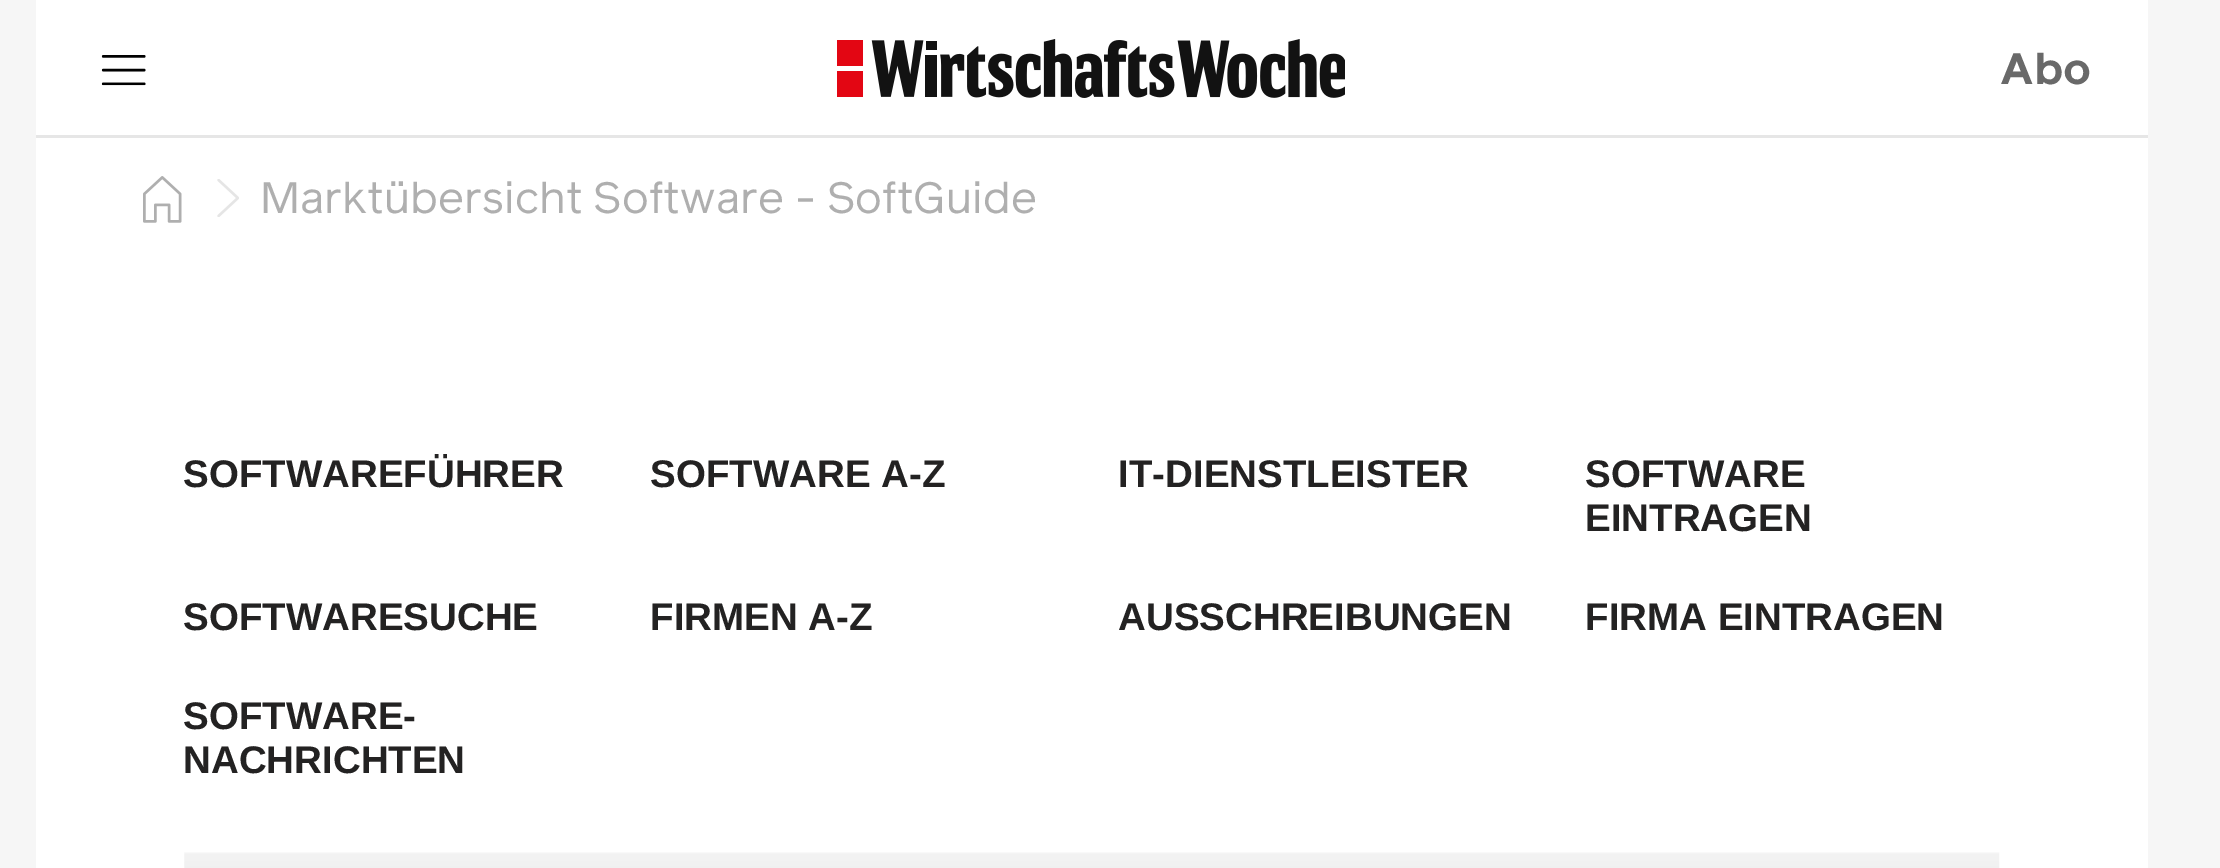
%!PS
<< /PageSize [2220 868] >> setpagedevice
/rgb { 3 { 255 div 3 1 roll } repeat setrgbcolor } def
/font { [ exch dup neg 0 0 3 -1 roll 0 0 ] selectfont } def
/picture { 5 dict begin { /h /w /y /x /name } { exch def } forall
  gsave x y translate w h scale
  w h 8 [w 0 0 h 0 0] name (r) file false 3 colorimage grestore end } def
0 868 translate 1 -1 scale
4 setmiterlimit
246 246 246 rgb
0 0 2220 868 rectfill
255 255 255 rgb
36 0 2112 868 rectfill
230 230 230 rgb
36 135 2112 3 rectfill
(img/1.rgb) 837 39 508 59 picture
(img/2.rgb) 101 55 45 31 picture
(img/3.rgb) 143 176 39 47 picture
(img/4.rgb) 217 179 22 38 picture
(img/5.rgb) 184 852 1816 16 picture
/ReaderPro-Bold 44 font
105 105 105 rgb
2000 84 moveto (Abo) show
/ReaderPro-Regular 44 font
175 175 175 rgb
260 213 moveto (Marktübersicht Software - SoftGuide) show
/LiberationSans-Bold 38.5 font
35 34 34 rgb
[
  [(SOFTWAREFÜHRER) 183 487]
  [(SOFTWARE A-Z) 650 487]
  [(IT-DIENSTLEISTER) 1118 487]
  [(SOFTWARE) 1585 487]
  [(EINTRAGEN) 1585 531]
  [(SOFTWARESUCHE) 183 630]
  [(FIRMEN A-Z) 650 630]
  [(AUSSCHREIBUNGEN) 1118 630]
  [(FIRMA EINTRAGEN) 1585 630]
  [(SOFTWARE-) 183 729]
  [(NACHRICHTEN) 183 773]
] { aload pop moveto show } forall
showpage
